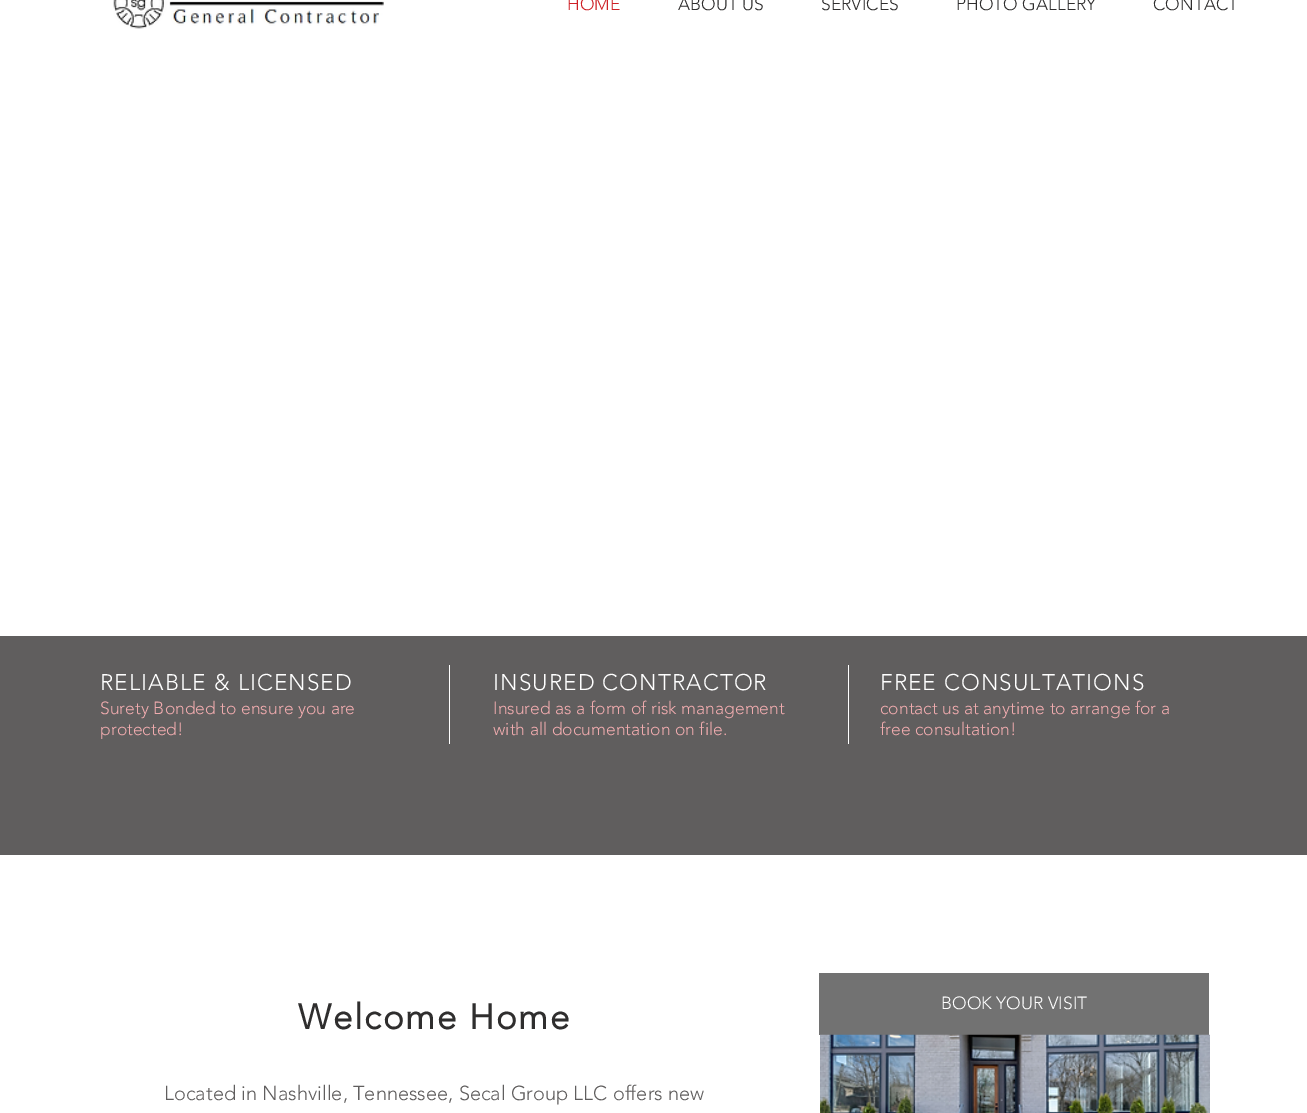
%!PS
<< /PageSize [1307 1113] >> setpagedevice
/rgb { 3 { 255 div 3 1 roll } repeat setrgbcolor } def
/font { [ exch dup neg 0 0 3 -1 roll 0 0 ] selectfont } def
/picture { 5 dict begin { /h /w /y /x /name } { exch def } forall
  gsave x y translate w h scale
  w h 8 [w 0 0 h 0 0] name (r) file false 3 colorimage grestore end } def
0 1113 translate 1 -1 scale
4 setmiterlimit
255 255 255 rgb
0 0 1307 1113 rectfill
(img/1.rgb) 113 0 271 29 picture
[
  [0 636 1307 219 96 94 94]
  [449 665 1 79 255 255 255]
  [848 665 1 79 255 255 255]
  [819 973 390 62 114 114 114]
] { aload pop rgb rectfill } forall
(img/2.rgb) 820 1034 390 79 picture
/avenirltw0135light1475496-Light 17.5 font
206 32 38 rgb
567 10 moveto (HOME) show
47 46 46 rgb
[
  [(ABOUT US) 678 10]
  [(SERVICES) 821 10]
  [(PHOTO GALLERY) 956 10]
  [(CONTACT) 1153 10]
] { aload pop moveto show } forall
/avenirltw0135light1475496-Light 22.5 font
255 255 255 rgb
100 690 moveto 1.1 0 (RELIABLE & LICENSED) ashow
493 690 moveto 1.1 0 (INSURED CONTRACTOR) ashow
880 690 moveto 1.1 0 (FREE CONSULTATIONS) ashow
/avenirltw0135light1475496-Light 17.5 font
239 171 174 rgb
[
  [(Surety Bonded to ensure you are) 100 714]
  [(protected!) 100 735]
  [(Insured as a form of risk management) 493 714]
  [(with all documentation on file.) 493 735]
  [(contact us at anytime to arrange for a) 880 714]
  [(free consultation!) 880 735]
] { aload pop moveto show } forall
/avenirltw0135light1475496-Bold 35 font
47 46 46 rgb
298 1029 moveto 1.75 0 (Welcome Home) ashow
/avenirltw0135light1475496-Light 17.5 font
255 255 255 rgb
941 1009 moveto (BOOK YOUR VISIT) show
/avenirltw0135light1475496-Light 20 font
96 94 94 rgb
164 1100 moveto (Located in Nashville, Tennessee, Secal Group LLC offers new) show
showpage
